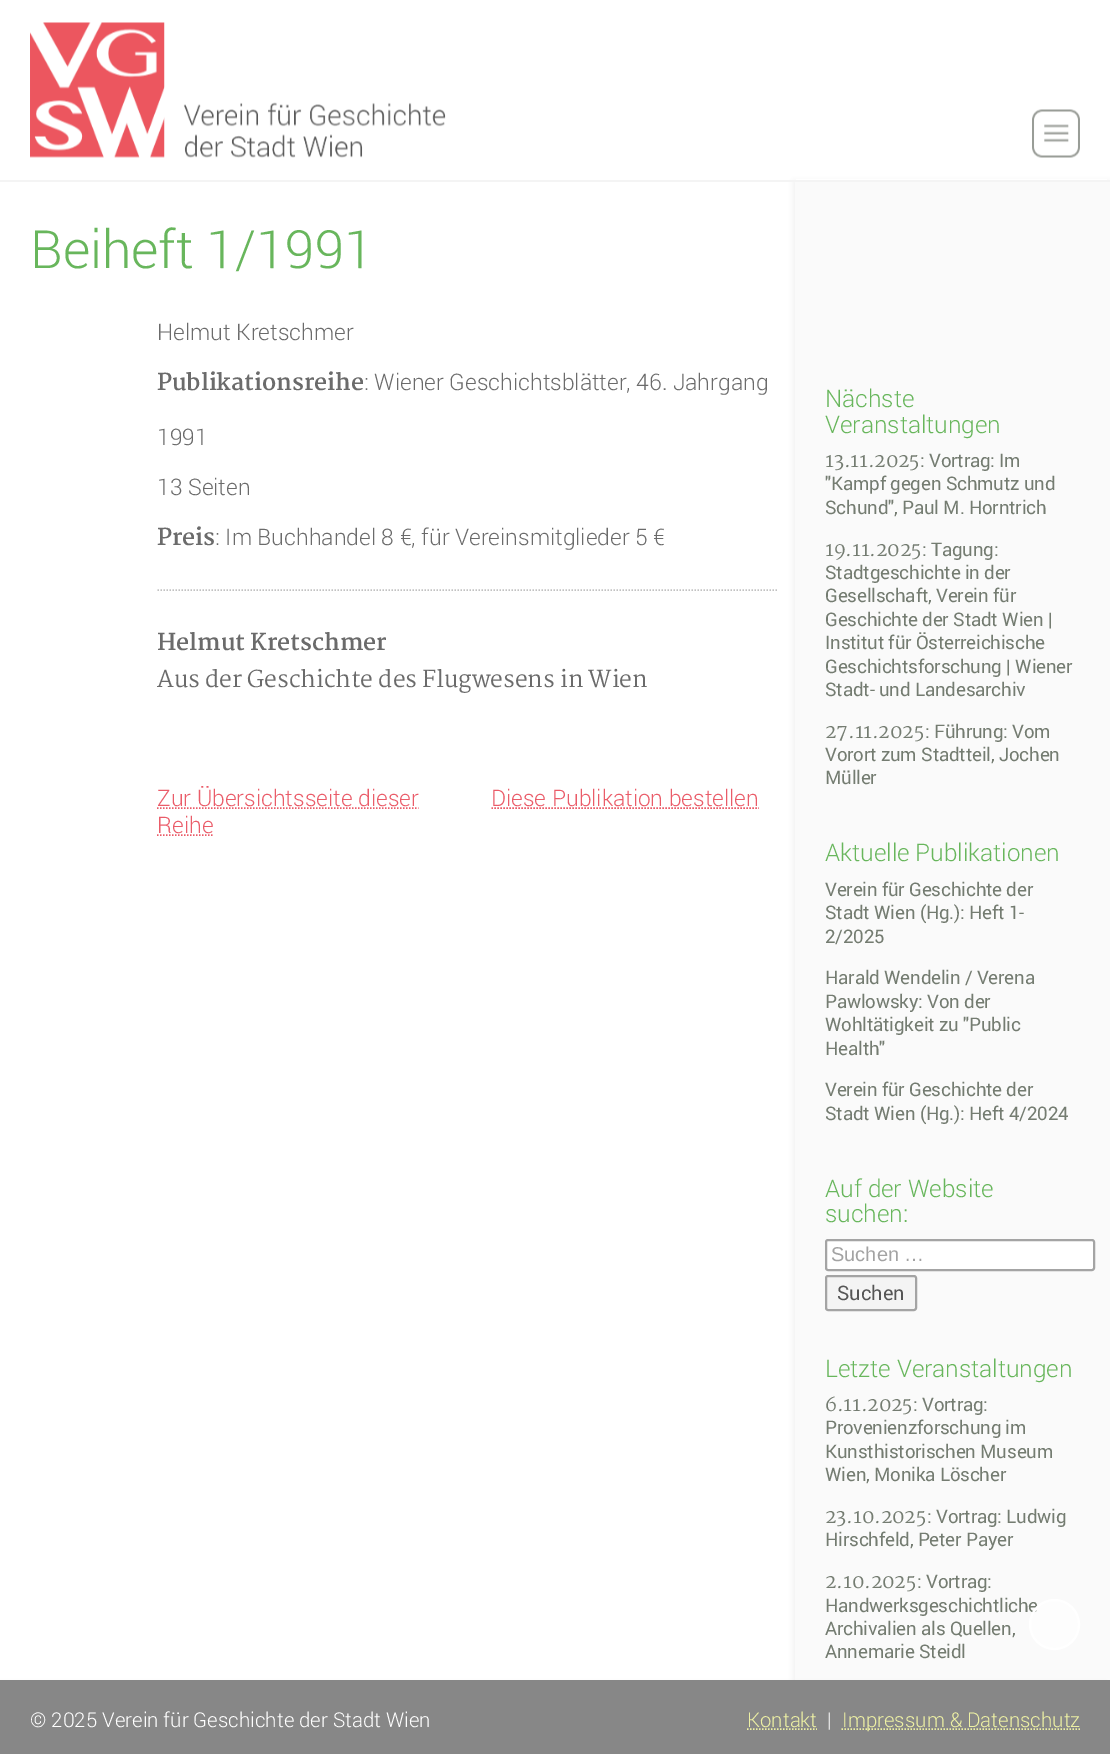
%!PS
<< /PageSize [1110 1754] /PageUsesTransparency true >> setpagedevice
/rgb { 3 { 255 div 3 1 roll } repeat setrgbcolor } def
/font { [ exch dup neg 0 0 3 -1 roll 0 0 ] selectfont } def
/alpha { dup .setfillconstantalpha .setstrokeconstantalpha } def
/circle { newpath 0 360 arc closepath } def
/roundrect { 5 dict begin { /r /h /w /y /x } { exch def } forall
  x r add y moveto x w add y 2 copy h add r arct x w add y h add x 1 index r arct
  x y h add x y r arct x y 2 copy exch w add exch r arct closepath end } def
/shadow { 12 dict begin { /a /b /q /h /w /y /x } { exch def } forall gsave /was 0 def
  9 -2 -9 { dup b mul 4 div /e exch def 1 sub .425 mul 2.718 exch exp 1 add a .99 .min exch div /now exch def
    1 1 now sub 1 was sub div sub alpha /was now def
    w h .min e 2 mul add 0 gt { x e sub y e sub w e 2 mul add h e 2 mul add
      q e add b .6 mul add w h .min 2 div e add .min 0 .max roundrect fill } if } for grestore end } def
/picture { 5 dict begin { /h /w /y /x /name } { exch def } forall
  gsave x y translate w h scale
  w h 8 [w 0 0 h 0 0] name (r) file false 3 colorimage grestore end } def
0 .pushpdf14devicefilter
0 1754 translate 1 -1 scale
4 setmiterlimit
255 255 255 rgb
0 0 1110 1754 rectfill
237 237 237 rgb
794 182 315 1516 0 3 1 shadow
255 255 255 rgb
796 179 311 1 rectfill
244 244 244 rgb
0 180 1110 2 rectfill
(img/1.rgb) 30 22 416 136 picture
(img/2.rgb) 1032 109 48 49 picture
194 194 194 rgb
1.5 setlinewidth
[1.5 1.5] 0 setdash
157.5 590 moveto 777 590 lineto stroke
234 92 105 rgb
157 808 moveto 418.5 808 lineto stroke
157 835 moveto 213.5 835 lineto stroke
491.5 808 moveto 759 808 lineto stroke
250 250 250 rgb
795 182 315 1498 rectfill
255 255 255 rgb
826 1240 268 30 2 roundrect gsave fill grestore
164 164 164 rgb
2 setlinewidth
[] 0 setdash
stroke
244 244 244 rgb
826 1276 90 34 2 roundrect gsave fill grestore
164 164 164 rgb
stroke
217 217 217 rgb
-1 1682 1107 72 0 1.5 1 shadow
135 135 135 rgb
0 1680 1110 74 rectfill
237 240 164 rgb
1.5 setlinewidth
[1.5 1.5] 0 setdash
747 1729 moveto 817 1729 lineto stroke
841.5 1729 moveto 1080 1729 lineto stroke
/Roboto-Light 52.75 font
104 182 92 rgb
30 268 moveto (Beiheft 1/1991) show
/Roboto-Light 22.8 font
107 107 107 rgb
157 340 moveto (Helmut Kretschmer) show
/Martel-Bold 22.8 font
157 390 moveto (Publikationsreihe) show
/Roboto-Light 22.8 font
[
  [(: Wiener Geschichtsblätter, 46. Jahrgang) 364 390]
  [(1991) 157 445]
  [(13 Seiten) 157 495]
] { aload pop moveto show } forall
/Martel-Bold 22.8 font
157 545 moveto (Preis) show
/Roboto-Light 22.8 font
215 545 moveto (: Im Buchhandel 8 €, für Vereinsmitglieder 5 €) show
/Martel-Bold 22.8 font
157 650 moveto (Helmut Kretschmer) show
/Martel-Regular 22.8 font
157 687 moveto (Aus der Geschichte des Flugwesens in Wien) show
/Roboto-Light 22.8 font
234 92 105 rgb
[
  [(Zur Übersichtsseite dieser) 157 806]
  [(Reihe) 157 833]
  [(Diese Publikation bestellen) 491 806]
] { aload pop moveto show } forall
/Roboto-Light 24.25 font
104 182 92 rgb
825 407 moveto (Nächste) show
825 433 moveto (Veranstaltungen) show
/Martel-Regular 19.5 font
116 124 113 rgb
825 467 moveto -0.2 0 (13.11.2025) ashow
/Roboto-Regular 18.75 font
920 467 moveto -0.2 0 (: Vortrag: Im) ashow
825 490 moveto -0.2 0 ("Kampf gegen Schmutz und) ashow
825 514 moveto -0.2 0 (Schund", Paul M. Horntrich) ashow
/Martel-Regular 19.5 font
825 556 moveto -0.2 0 (19.11.2025) ashow
/Roboto-Regular 18.75 font
922 556 moveto -0.2 0 (: Tagung:) ashow
825 579 moveto -0.2 0 (Stadtgeschichte in der) ashow
825 602 moveto -0.2 0 (Gesellschaft, Verein für) ashow
825 626 moveto -0.2 0 (Geschichte der Stadt Wien |) ashow
825 649 moveto -0.2 0 (Institut für Österreichische) ashow
825 673 moveto -0.2 0 (Geschichtsforschung | Wiener) ashow
825 696 moveto -0.2 0 (Stadt- und Landesarchiv) ashow
/Martel-Regular 19.5 font
825 738 moveto -0.2 0 (27.11.2025) ashow
/Roboto-Regular 18.75 font
925 738 moveto -0.2 0 (: Führung: Vom) ashow
825 761 moveto -0.2 0 (Vorort zum Stadtteil, Jochen) ashow
825 784 moveto -0.2 0 (Müller) ashow
/Roboto-Light 24.25 font
104 182 92 rgb
825 861 moveto (Aktuelle Publikationen) show
/Roboto-Regular 18.75 font
116 124 113 rgb
825 896 moveto -0.2 0 (Verein für Geschichte der) ashow
825 919 moveto -0.2 0 (Stadt Wien \(Hg.\): Heft 1-) ashow
825 943 moveto -0.2 0 (2/2025) ashow
825 984 moveto -0.2 0 (Harald Wendelin / Verena) ashow
825 1008 moveto -0.2 0 (Pawlowsky: Von der) ashow
825 1031 moveto -0.2 0 (Wohltätigkeit zu "Public) ashow
825 1055 moveto -0.2 0 (Health") ashow
825 1096 moveto -0.2 0 (Verein für Geschichte der) ashow
825 1120 moveto -0.2 0 (Stadt Wien \(Hg.\): Heft 4/2024) ashow
/Roboto-Light 24.25 font
104 182 92 rgb
825 1197 moveto (Auf der Website) show
825 1222 moveto (suchen:) show
/LiberationSans-Regular 20 font
163 163 163 rgb
831 1261 moveto (Suchen …) show
/Roboto-Regular 20 font
85 85 85 rgb
837 1300 moveto (Suchen) show
/Roboto-Light 24.25 font
104 182 92 rgb
825 1377 moveto (Letzte Veranstaltungen) show
/Martel-Regular 19.5 font
116 124 113 rgb
825 1411 moveto -0.2 0 (6.11.2025) ashow
/Roboto-Regular 18.75 font
913 1411 moveto -0.2 0 (: Vortrag:) ashow
825 1434 moveto -0.2 0 (Provenienzforschung im) ashow
825 1458 moveto -0.2 0 (Kunsthistorischen Museum) ashow
825 1481 moveto -0.2 0 (Wien, Monika Löscher) ashow
/Martel-Regular 19.5 font
825 1523 moveto -0.2 0 (23.10.2025) ashow
/Roboto-Regular 18.75 font
927 1523 moveto -0.2 0 (: Vortrag: Ludwig) ashow
825 1546 moveto -0.2 0 (Hirschfeld, Peter Payer) ashow
/Martel-Regular 19.5 font
825 1588 moveto -0.2 0 (2.10.2025) ashow
/Roboto-Regular 18.75 font
917 1588 moveto -0.2 0 (: Vortrag:) ashow
825 1612 moveto -0.2 0 (Handwerksgeschichtliche) ashow
825 1635 moveto -0.2 0 (Archivalien als Quellen,) ashow
825 1658 moveto -0.2 0 (Annemarie Steidl) ashow
/Roboto-Light 20.4 font
255 255 255 rgb
30 1727 moveto (© 2025 Verein für Geschichte der Stadt Wien) show
237 240 164 rgb
747 1727 moveto (Kontakt) show
255 255 255 rgb
827 1727 moveto (|) show
237 240 164 rgb
842 1727 moveto (Impressum & Datenschutz) show
0.5 alpha
255 255 255 rgb
1054.5 1624.5 24.5 circle fill
1 alpha
2 setlinewidth
[] 0 setdash
1054.5 1624.5 24.5 circle stroke
.poppdf14devicefilter showpage
